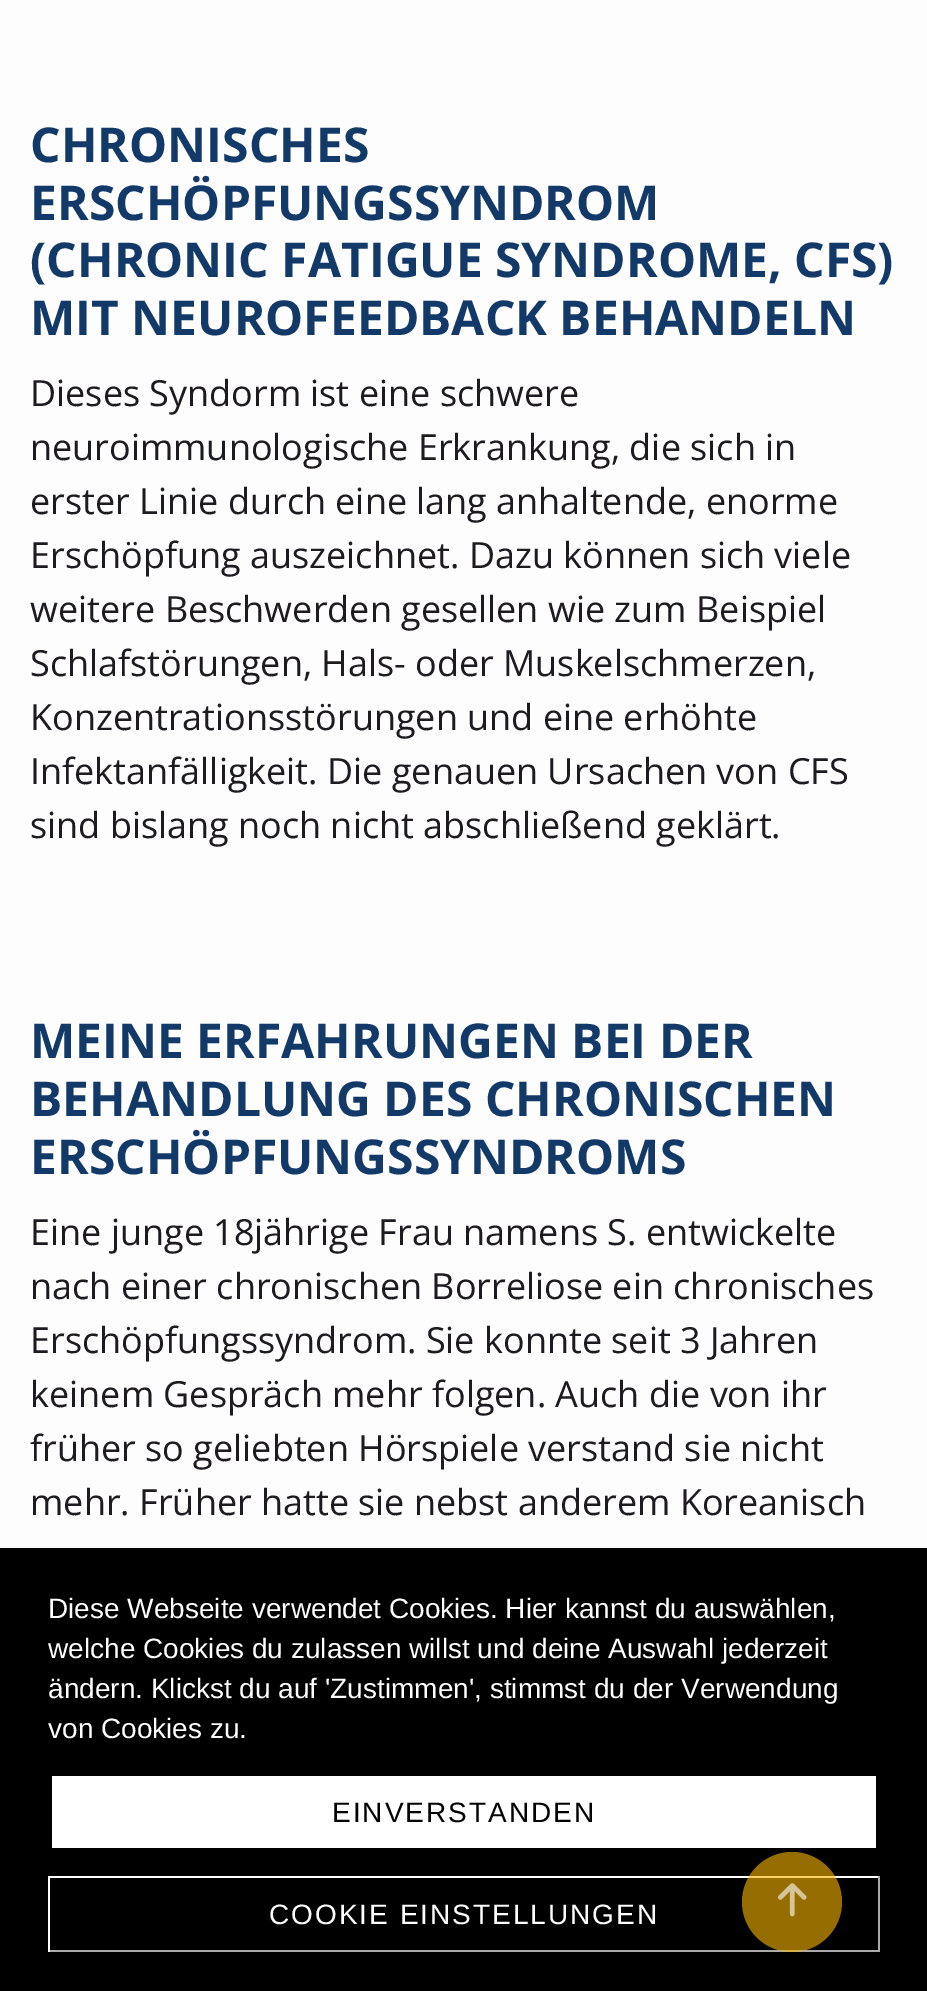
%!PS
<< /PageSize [927 1991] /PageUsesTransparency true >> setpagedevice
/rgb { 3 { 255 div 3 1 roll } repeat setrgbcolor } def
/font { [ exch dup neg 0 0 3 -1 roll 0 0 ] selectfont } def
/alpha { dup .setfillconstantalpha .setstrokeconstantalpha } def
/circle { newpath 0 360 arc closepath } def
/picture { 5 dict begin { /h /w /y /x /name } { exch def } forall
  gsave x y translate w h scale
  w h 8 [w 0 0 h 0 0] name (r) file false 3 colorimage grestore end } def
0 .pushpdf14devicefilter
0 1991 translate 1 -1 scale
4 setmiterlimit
253 253 253 rgb
0 0 927 1991 rectfill
[
  [0 1548 927 443 0 0 0]
  [52 1776 824 72 255 255 255]
  [48 1876 832 2 255 255 255]
  [878 1876 2 76 170 170 170]
  [48 1950 832 2 170 170 170]
  [48 1876 2 76 255 255 255]
] { aload pop rgb rectfill } forall
0.6 alpha
250 182 0 rgb
792 1902 50 circle fill
1 alpha
(img/1.rgb) 778 1883 29 34 picture
/OpenSans-Bold 48 font
18 57 104 rgb
[
  [(CHRONISCHES) 30 162]
  [(ERSCHÖPFUNGSSYNDROM) 30 220]
  [(\(CHRONIC FATIGUE SYNDROME, CFS\)) 30 277]
  [(MIT NEUROFEEDBACK BEHANDELN) 30 335]
] { aload pop moveto show } forall
/OpenSans-Regular 36 font
30 27 32 rgb
[
  [(Dieses Syndorm ist eine schwere) 30 406]
  [(neuroimmunologische Erkrankung, die sich in) 30 460]
  [(erster Linie durch eine lang anhaltende, enorme) 30 514]
  [(Erschöpfung auszeichnet. Dazu können sich viele) 30 568]
  [(weitere Beschwerden gesellen wie zum Beispiel) 30 622]
  [(Schlafstörungen, Hals- oder Muskelschmerzen,) 30 676]
  [(Konzentrationsstörungen und eine erhöhte) 30 730]
  [(Infektanfälligkeit. Die genauen Ursachen von CFS) 30 784]
  [(sind bislang noch nicht abschließend geklärt.) 30 838]
] { aload pop moveto show } forall
/OpenSans-Bold 48 font
18 57 104 rgb
[
  [(MEINE ERFAHRUNGEN BEI DER) 30 1058]
  [(BEHANDLUNG DES CHRONISCHEN) 30 1116]
  [(ERSCHÖPFUNGSSYNDROMS) 30 1174]
] { aload pop moveto show } forall
/OpenSans-Regular 36 font
30 27 32 rgb
[
  [(Eine junge 18jährige Frau namens S. entwickelte) 30 1245]
  [(nach einer chronischen Borreliose ein chronisches) 30 1299]
  [(Erschöpfungssyndrom. Sie konnte seit 3 Jahren) 30 1353]
  [(keinem Gespräch mehr folgen. Auch die von ihr) 30 1407]
  [(früher so geliebten Hörspiele verstand sie nicht) 30 1461]
  [(mehr. Früher hatte sie nebst anderem Koreanisch) 30 1515]
] { aload pop moveto show } forall
/LiberationSans-Regular 28 font
255 255 255 rgb
[
  [(Diese Webseite verwendet Cookies. Hier kannst du auswählen,) 48 1618]
  [(welche Cookies du zulassen willst und deine Auswahl jederzeit) 48 1658]
  [(ändern. Klickst du auf 'Zustimmen', stimmst du der Verwendung) 48 1698]
  [(von Cookies zu.) 48 1738]
] { aload pop moveto show } forall
0 0 0 rgb
332 1822 moveto 2 0 (EINVERSTANDEN) ashow
255 255 255 rgb
269 1924 moveto 2 0 (COOKIE EINSTELLUNGEN) ashow
.poppdf14devicefilter showpage
